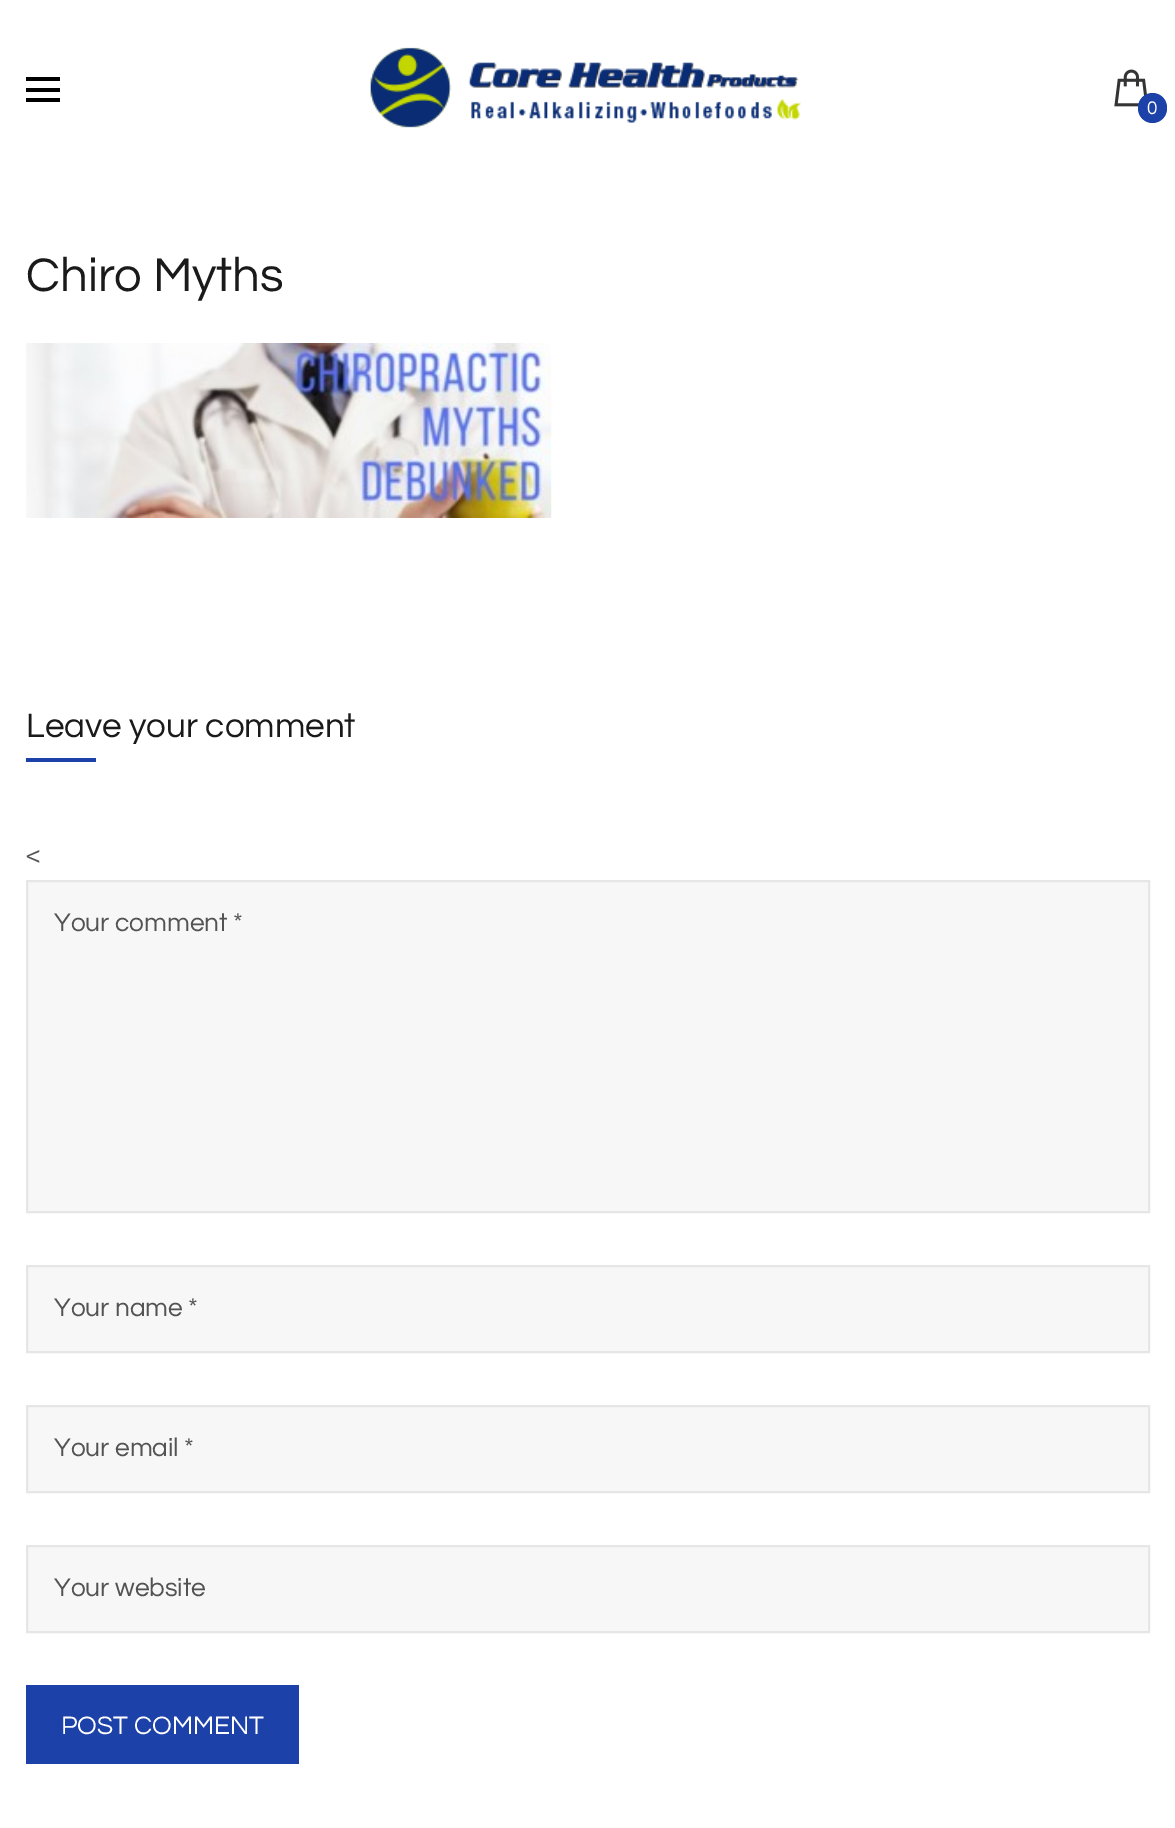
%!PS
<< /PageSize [1175 1828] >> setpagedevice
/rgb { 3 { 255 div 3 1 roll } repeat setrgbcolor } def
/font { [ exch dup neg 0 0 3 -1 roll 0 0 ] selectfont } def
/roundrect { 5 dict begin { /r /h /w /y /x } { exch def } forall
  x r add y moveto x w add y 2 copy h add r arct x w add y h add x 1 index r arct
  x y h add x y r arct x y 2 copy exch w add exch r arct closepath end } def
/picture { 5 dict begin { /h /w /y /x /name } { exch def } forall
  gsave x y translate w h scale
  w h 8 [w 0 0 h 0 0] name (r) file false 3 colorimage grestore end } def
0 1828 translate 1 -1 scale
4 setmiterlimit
255 255 255 rgb
0 0 1175 1828 rectfill
[
  [26 88 34 4 0 0 0]
  [26 77 34 4 0 0 0]
  [26 98 34 4 0 0 0]
] { aload pop rgb rectfill } forall
(img/1.rgb) 370 47 431 81 picture
(img/2.rgb) 1114 69 33 38 picture
28 65 168 rgb
1138 93 29 30 14.5 roundrect fill
(img/3.rgb) 26 343 526 175 picture
26 758 70 4 rectfill
247 247 247 rgb
27 881 moveto 1149 881 lineto 1149 1212 lineto 27 1212 lineto closepath gsave fill grestore
230 230 230 rgb
2 setlinewidth
stroke
247 247 247 rgb
27 1266 moveto 1149 1266 lineto 1149 1352 lineto 27 1352 lineto closepath gsave fill grestore
230 230 230 rgb
stroke
247 247 247 rgb
27 1406 moveto 1149 1406 lineto 1149 1492 lineto 27 1492 lineto closepath gsave fill grestore
230 230 230 rgb
stroke
247 247 247 rgb
27 1546 moveto 1149 1546 lineto 1149 1632 lineto 27 1632 lineto closepath gsave fill grestore
230 230 230 rgb
stroke
28 65 168 rgb
26 1685 273 79 rectfill
/Questrial-Regular 19 font
255 255 255 rgb
1147 114 moveto (0) show
/Questrial-Regular 49 font
26 26 26 rgb
26 291 moveto (Chiro Myths) show
/Questrial-Regular 35 font
26 737 moveto (Leave your comment) show
/Questrial-Regular 26.25 font
83 83 83 rgb
[
  [(<) 26 863]
  [(Your comment *) 54 931]
  [(Your name *) 54 1316]
  [(Your email *) 54 1456]
  [(Your website) 54 1596]
] { aload pop moveto show } forall
255 255 255 rgb
61 1734 moveto (POST COMMENT) show
showpage
